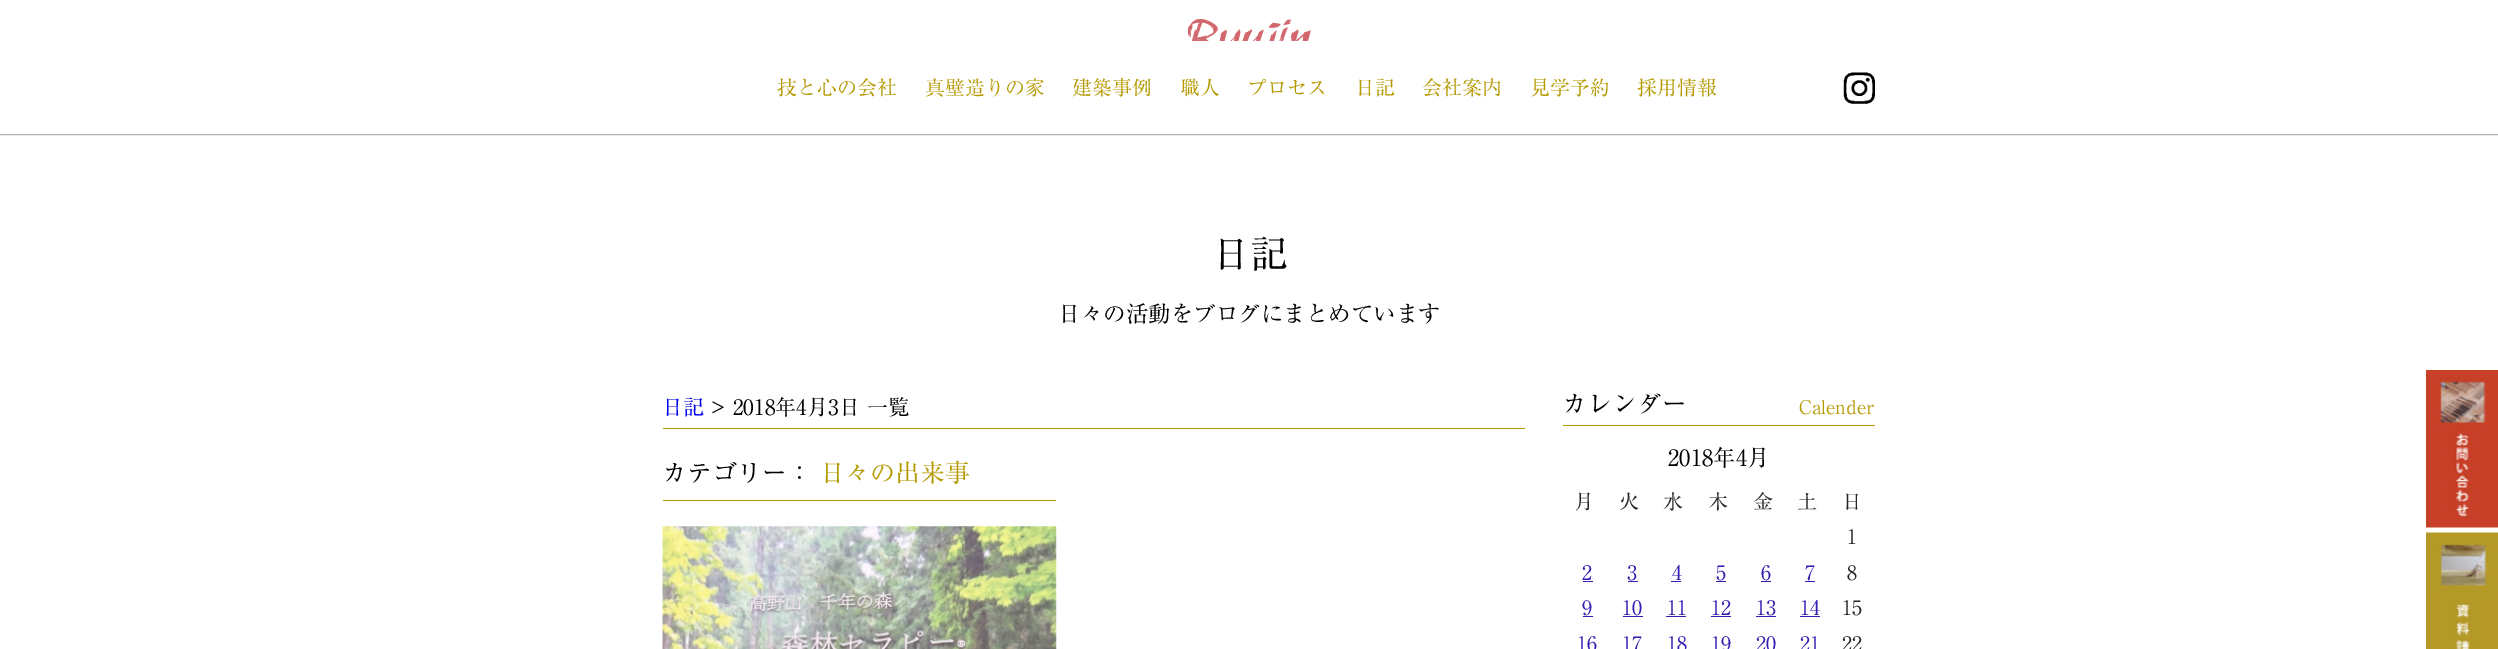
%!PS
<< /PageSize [2498 649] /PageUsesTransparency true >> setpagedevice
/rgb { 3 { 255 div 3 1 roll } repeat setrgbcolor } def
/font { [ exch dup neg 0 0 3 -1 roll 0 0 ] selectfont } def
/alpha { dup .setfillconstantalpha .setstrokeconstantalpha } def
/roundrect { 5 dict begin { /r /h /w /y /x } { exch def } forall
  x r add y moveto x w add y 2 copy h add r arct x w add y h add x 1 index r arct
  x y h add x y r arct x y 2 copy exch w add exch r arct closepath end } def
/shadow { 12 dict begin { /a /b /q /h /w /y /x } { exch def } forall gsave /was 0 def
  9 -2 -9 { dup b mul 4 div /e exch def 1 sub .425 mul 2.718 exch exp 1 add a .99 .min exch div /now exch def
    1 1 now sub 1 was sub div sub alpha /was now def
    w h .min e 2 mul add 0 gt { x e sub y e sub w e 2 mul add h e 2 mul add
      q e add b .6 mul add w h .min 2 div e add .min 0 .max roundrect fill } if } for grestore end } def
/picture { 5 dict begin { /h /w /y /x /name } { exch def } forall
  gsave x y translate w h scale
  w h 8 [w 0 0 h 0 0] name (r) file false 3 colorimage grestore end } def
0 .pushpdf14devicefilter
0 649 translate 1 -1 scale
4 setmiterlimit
255 255 255 rgb
0 0 2498 649 rectfill
0 0 0 rgb
0 0 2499 134 0 1 1 shadow
255 255 255 rgb
0 0 2498 134 rectfill
(img/1.rgb) 1188 19 123 22 picture
(img/2.rgb) 1843 72 32 32 picture
180 153 0 rgb
663 428 862 1 rectfill
663 500 393 1 rectfill
(img/3.rgb) 662 526 395 123 picture
[
  [1563 425 312 1 180 153 0]
  [1583 581 10 1 49 30 177]
  [1628 581 10 1 49 30 177]
  [1671 581 10 1 49 30 177]
  [1716 581 10 1 49 30 177]
  [1761 581 10 1 49 30 177]
  [1805 581 10 1 49 30 177]
  [1583 616 10 1 49 30 177]
  [1623 616 20 1 49 30 177]
  [1666 616 20 1 49 30 177]
  [1711 616 20 1 49 30 177]
  [1756 616 20 1 49 30 177]
  [1800 616 20 1 49 30 177]
] { aload pop rgb rectfill } forall
(img/4.rgb) 2426 370 72 158 picture
(img/5.rgb) 2426 532 72 117 picture
/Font-Regular 20 font
180 153 0 rgb
[
  [(技と心の会社) 777 95]
  [(真壁造りの家) 925 95]
  [(建築事例) 1072 95]
  [(職人) 1180 95]
  [(プロセス) 1247 95]
  [(日記) 1355 95]
  [(会社案内) 1422 95]
  [(見学予約) 1530 95]
  [(採用情報) 1637 95]
] { aload pop moveto show } forall
/Font-Regular 38 font
0 0 0 rgb
1212 268 moveto (日記) show
/Font-Regular 22.5 font
1058 322 moveto (日々の活動をブログにまとめています) show
/Font-Regular 21.25 font
0 0 238 rgb
662 415 moveto (日記) show
0 0 0 rgb
711 415 moveto (> 2018年4月3日 一覧) show
/Font-Regular 25 font
662 482 moveto (カテゴリー：) show
180 153 0 rgb
820 482 moveto (日々の出来事) show
0 0 0 rgb
1562 413 moveto (カレンダー) show
/Font-Regular 18.75 font
180 153 0 rgb
1799 414 moveto (Calender) show
/Font-Regular 22.5 font
0 0 0 rgb
1668 466 moveto (2018年4月) show
/Font-Regular 20 font
37 37 37 rgb
[
  [(月) 1574 509]
  [(火) 1619 509]
  [(水) 1663 509]
  [(木) 1708 509]
  [(金) 1753 509]
  [(土) 1797 509]
  [(日) 1842 509]
  [(1) 1847 544]
] { aload pop moveto show } forall
49 30 177 rgb
[
  [(2) 1582 580]
  [(3) 1627 580]
  [(4) 1672 580]
  [(5) 1716 580]
  [(6) 1761 580]
  [(7) 1805 580]
] { aload pop moveto show } forall
37 37 37 rgb
1847 580 moveto (8) show
49 30 177 rgb
[
  [(9) 1582 615]
  [(10) 1622 615]
  [(11) 1667 615]
  [(12) 1711 615]
  [(13) 1756 615]
  [(14) 1800 615]
] { aload pop moveto show } forall
37 37 37 rgb
1842 615 moveto (15) show
49 30 177 rgb
[
  [(16) 1577 651]
  [(17) 1622 651]
  [(18) 1667 651]
  [(19) 1711 651]
  [(20) 1756 651]
  [(21) 1800 651]
] { aload pop moveto show } forall
37 37 37 rgb
1842 651 moveto (22) show
.poppdf14devicefilter showpage
